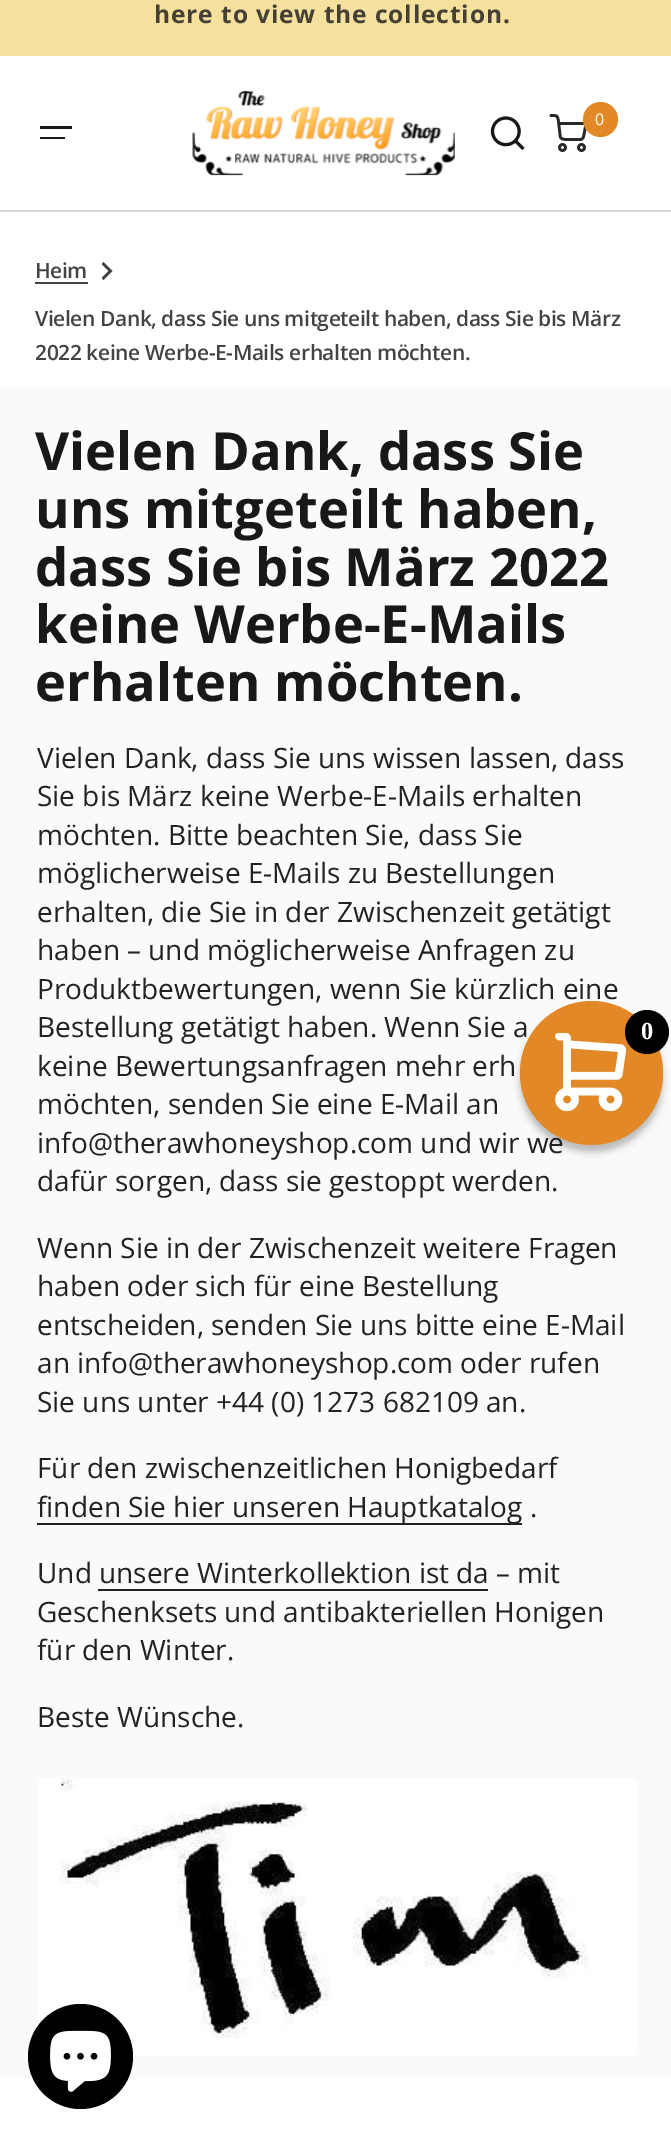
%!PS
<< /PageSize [671 2144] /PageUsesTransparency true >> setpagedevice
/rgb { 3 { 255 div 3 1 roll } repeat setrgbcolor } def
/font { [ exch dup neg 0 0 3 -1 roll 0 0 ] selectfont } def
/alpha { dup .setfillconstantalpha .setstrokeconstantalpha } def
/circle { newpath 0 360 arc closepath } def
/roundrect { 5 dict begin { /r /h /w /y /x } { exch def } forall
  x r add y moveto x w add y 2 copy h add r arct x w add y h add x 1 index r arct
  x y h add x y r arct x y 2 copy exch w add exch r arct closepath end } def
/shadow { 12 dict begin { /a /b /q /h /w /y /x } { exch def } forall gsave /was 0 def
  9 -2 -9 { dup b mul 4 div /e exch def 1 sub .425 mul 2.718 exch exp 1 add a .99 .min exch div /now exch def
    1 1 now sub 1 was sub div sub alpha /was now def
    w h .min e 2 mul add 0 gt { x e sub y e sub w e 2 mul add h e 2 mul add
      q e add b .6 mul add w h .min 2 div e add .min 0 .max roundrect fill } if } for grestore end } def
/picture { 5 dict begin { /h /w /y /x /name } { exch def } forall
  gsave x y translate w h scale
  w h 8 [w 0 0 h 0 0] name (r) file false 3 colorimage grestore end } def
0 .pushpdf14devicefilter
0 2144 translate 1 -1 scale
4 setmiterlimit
255 255 255 rgb
0 0 671 2144 rectfill
245 224 158 rgb
0 0 671 56 rectfill
(img/1.rgb) 192 90 263 86 picture
(img/2.rgb) 490 116 35 35 picture
40 40 40 rgb
2.7 setlinewidth
562.5 147.5 3 circle stroke
581.5 147.5 3 circle stroke
1 setlinecap
1 setlinejoin
558.5 123.5 moveto 586 123.5 lineto 584 134.5 lineto 583 141 581 139.5 575 139.5 curveto 566.5 139.5 lineto 559 139.5 560.5 137.5 559.5 130.5 curveto 558.5 121.5 lineto 557.5 115 557 115.5 551 115.5 curveto stroke
226 136 38 rgb
600.5 119.5 17.5 circle fill
[
  [40 126 32 3 24 24 24]
  [40 137 25 2 24 24 24]
  [0 210 671 2 214 214 214]
  [35 282 53 2 67 67 67]
] { aload pop rgb rectfill } forall
gsave
102 261 12 19 rectclip
108.5 271 moveto 101.5 264 lineto 103.5 262 lineto 112.5 271 lineto 103.5 280 lineto 101.5 278 lineto closepath fill
grestore
[
  [0 387 671 1692 250 250 250]
  [37 1523 485 2 34 34 34]
  [98 1589 390 2 34 34 34]
] { aload pop rgb rectfill } forall
(img/3.rgb) 37 1778 600 278 picture
0 0 0 rgb
520 1008 143 144 71.5 3.5 0.25 shadow
80.5 2056.5 52.5 circle fill
(img/5.rgb) 50 2030 61 62 picture
/OpenSans-Bold 24.5 font
68 64 51 rgb
154 23 moveto 0.9 0 (here to view the collection.) ashow
/OpenSans-Regular 16 font
255 255 255 rgb
595 125 moveto (0) show
/OpenSans-SemiBold 21 font
67 67 67 rgb
35 278 moveto -0.42 0 (Heim) ashow
35 326 moveto -0.42 0 (Vielen Dank, dass Sie uns mitgeteilt haben, dass Sie bis März) ashow
35 360 moveto -0.42 0 (2022 keine Werbe-E-Mails erhalten möchten.) ashow
/OpenSans-Bold 52.5 font
24 24 24 rgb
[
  [(Vielen Dank, dass Sie) 35 470]
  [(uns mitgeteilt haben,) 35 528]
  [(dass Sie bis März 2022) 35 586]
  [(keine Werbe-E-Mails) 35 643]
  [(erhalten möchten.) 35 701]
] { aload pop moveto show } forall
/OpenSans-Regular 28 font
34 34 34 rgb
[
  [(Vielen Dank, dass Sie uns wissen lassen, dass) 37 768]
  [(Sie bis März keine Werbe-E-Mails erhalten) 37 806]
  [(möchten. Bitte beachten Sie, dass Sie) 37 845]
  [(möglicherweise E-Mails zu Bestellungen) 37 883]
  [(erhalten, die Sie in der Zwischenzeit getätigt) 37 922]
  [(haben – und möglicherweise Anfragen zu) 37 960]
  [(Produktbewertungen, wenn Sie kürzlich eine) 37 999]
  [(Bestellung getätigt haben. Wenn Sie a) 37 1037]
  [(keine Bewertungsanfragen mehr erh) 37 1076]
  [(möchten, senden Sie eine E-Mail an) 37 1114]
  [(info@therawhoneyshop.com und wir we) 37 1153]
  [(dafür sorgen, dass sie gestoppt werden.) 37 1191]
  [(Wenn Sie in der Zwischenzeit weitere Fragen) 37 1258]
  [(haben oder sich für eine Bestellung) 37 1296]
  [(entscheiden, senden Sie uns bitte eine E-Mail) 37 1335]
  [(an info@therawhoneyshop.com oder rufen) 37 1373]
  [(Sie uns unter +44 \(0\) 1273 682109 an.) 37 1412]
  [(Für den zwischenzeitlichen Honigbedarf) 37 1478]
  [(finden Sie hier unseren Hauptkatalog .) 37 1517]
  [(Und unsere Winterkollektion ist da – mit) 37 1583]
  [(Geschenksets und antibakteriellen Honigen) 37 1622]
  [(für den Winter.) 37 1660]
  [(Beste Wünsche.) 37 1727]
] { aload pop moveto show } forall
226 136 38 rgb
520 1001 143 144 71.5 roundrect fill
1 1 1 rgb
647 1032 22 circle fill
/LiberationSerif-Bold 24.5 font
255 255 255 rgb
641 1039 moveto (0) show
(img/4.rgb) 555 1033 71 78 picture
.poppdf14devicefilter showpage
